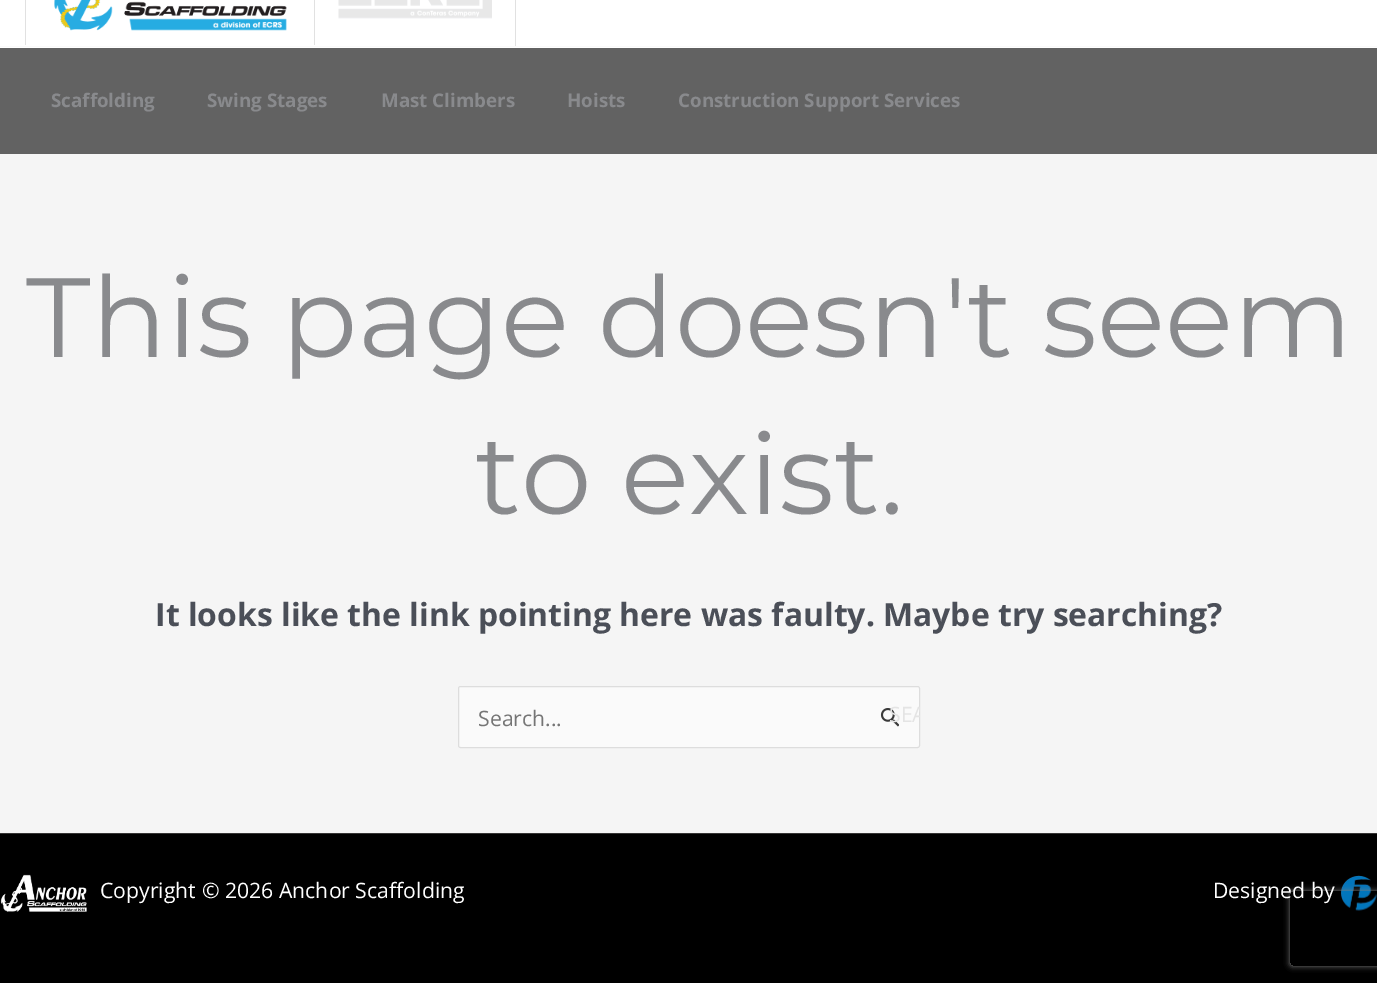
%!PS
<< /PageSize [1377 983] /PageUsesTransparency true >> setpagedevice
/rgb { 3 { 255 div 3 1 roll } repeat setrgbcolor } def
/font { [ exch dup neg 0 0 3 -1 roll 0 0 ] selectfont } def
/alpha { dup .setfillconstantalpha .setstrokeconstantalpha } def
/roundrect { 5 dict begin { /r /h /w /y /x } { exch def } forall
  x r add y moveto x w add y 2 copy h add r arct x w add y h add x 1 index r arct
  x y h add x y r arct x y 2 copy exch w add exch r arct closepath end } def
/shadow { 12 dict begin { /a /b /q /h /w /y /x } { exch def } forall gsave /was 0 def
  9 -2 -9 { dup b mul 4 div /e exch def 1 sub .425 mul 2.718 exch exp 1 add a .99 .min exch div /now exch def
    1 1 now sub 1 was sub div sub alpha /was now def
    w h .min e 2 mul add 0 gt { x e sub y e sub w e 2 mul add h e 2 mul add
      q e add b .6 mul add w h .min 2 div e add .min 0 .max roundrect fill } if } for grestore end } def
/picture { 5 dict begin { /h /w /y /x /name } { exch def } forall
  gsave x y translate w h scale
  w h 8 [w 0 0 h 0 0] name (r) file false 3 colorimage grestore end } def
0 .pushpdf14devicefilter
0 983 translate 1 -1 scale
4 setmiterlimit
245 245 245 rgb
0 0 1377 983 rectfill
[
  [0 0 1377 48 255 255 255]
  [0 46 1377 1 250 250 250]
  [314 0 1 45 225 225 225]
  [25 0 1 45 225 225 225]
] { aload pop rgb rectfill } forall
(img/1.rgb) 54 0 233 31 picture
515 0 1 46 rectfill
(img/2.rgb) 338 0 154 19 picture
98 98 98 rgb
0 48 1377 106 rectfill
250 250 250 rgb
458.5 686.5 461 61 2 roundrect gsave fill grestore
221 221 221 rgb
stroke
(img/3.rgb) 880 708 19 19 picture
0 0 0 rgb
0 834 1377 149 rectfill
53 52 52 rgb
0 833 1377 1 rectfill
(img/4.rgb) 0 874 87 38 picture
(img/5.rgb) 1341 875 36 36 picture
gsave
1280 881 moveto 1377 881 lineto 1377 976 lineto 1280 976 lineto closepath 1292.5 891 moveto 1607.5 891 lineto 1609 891 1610 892 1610 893.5 curveto 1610 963.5 lineto 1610 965 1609 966 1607.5 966 curveto 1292.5 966 lineto 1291 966 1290 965 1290 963.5 curveto 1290 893.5 lineto 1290 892 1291 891 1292.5 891 curveto closepath eoclip newpath
128 128 128 rgb
1290 891 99 75 2.5 3 1 shadow
grestore
/OpenSans-Bold 18.75 font
137 138 141 rgb
[
  [(Scaffolding) 51 107]
  [(Swing Stages) 207 107]
  [(Mast Climbers) 381 107]
  [(Hoists) 567 107]
  [(Construction Support Services) 678 107]
] { aload pop moveto show } forall
/Montserrat-Regular 112.5 font
26 357 moveto (This page doesn't seem) show
475 514 moveto (to exist.) show
/OpenSans-Bold 31.9 font
75 79 88 rgb
155 626 moveto (It looks like the link pointing here was faulty. Maybe try searching?) show
/OpenSans-Regular 21.25 font
117 117 117 rgb
478 726 moveto (Search...) show
gsave
864 686 56 54 2.5 roundrect clip newpath
228 228 228 rgb
889 722 moveto (SEA) show
grestore
255 255 255 rgb
100 898 moveto (Copyright © 2026 Anchor Scaffolding) show
1213 898 moveto (Designed by) show
.poppdf14devicefilter showpage
